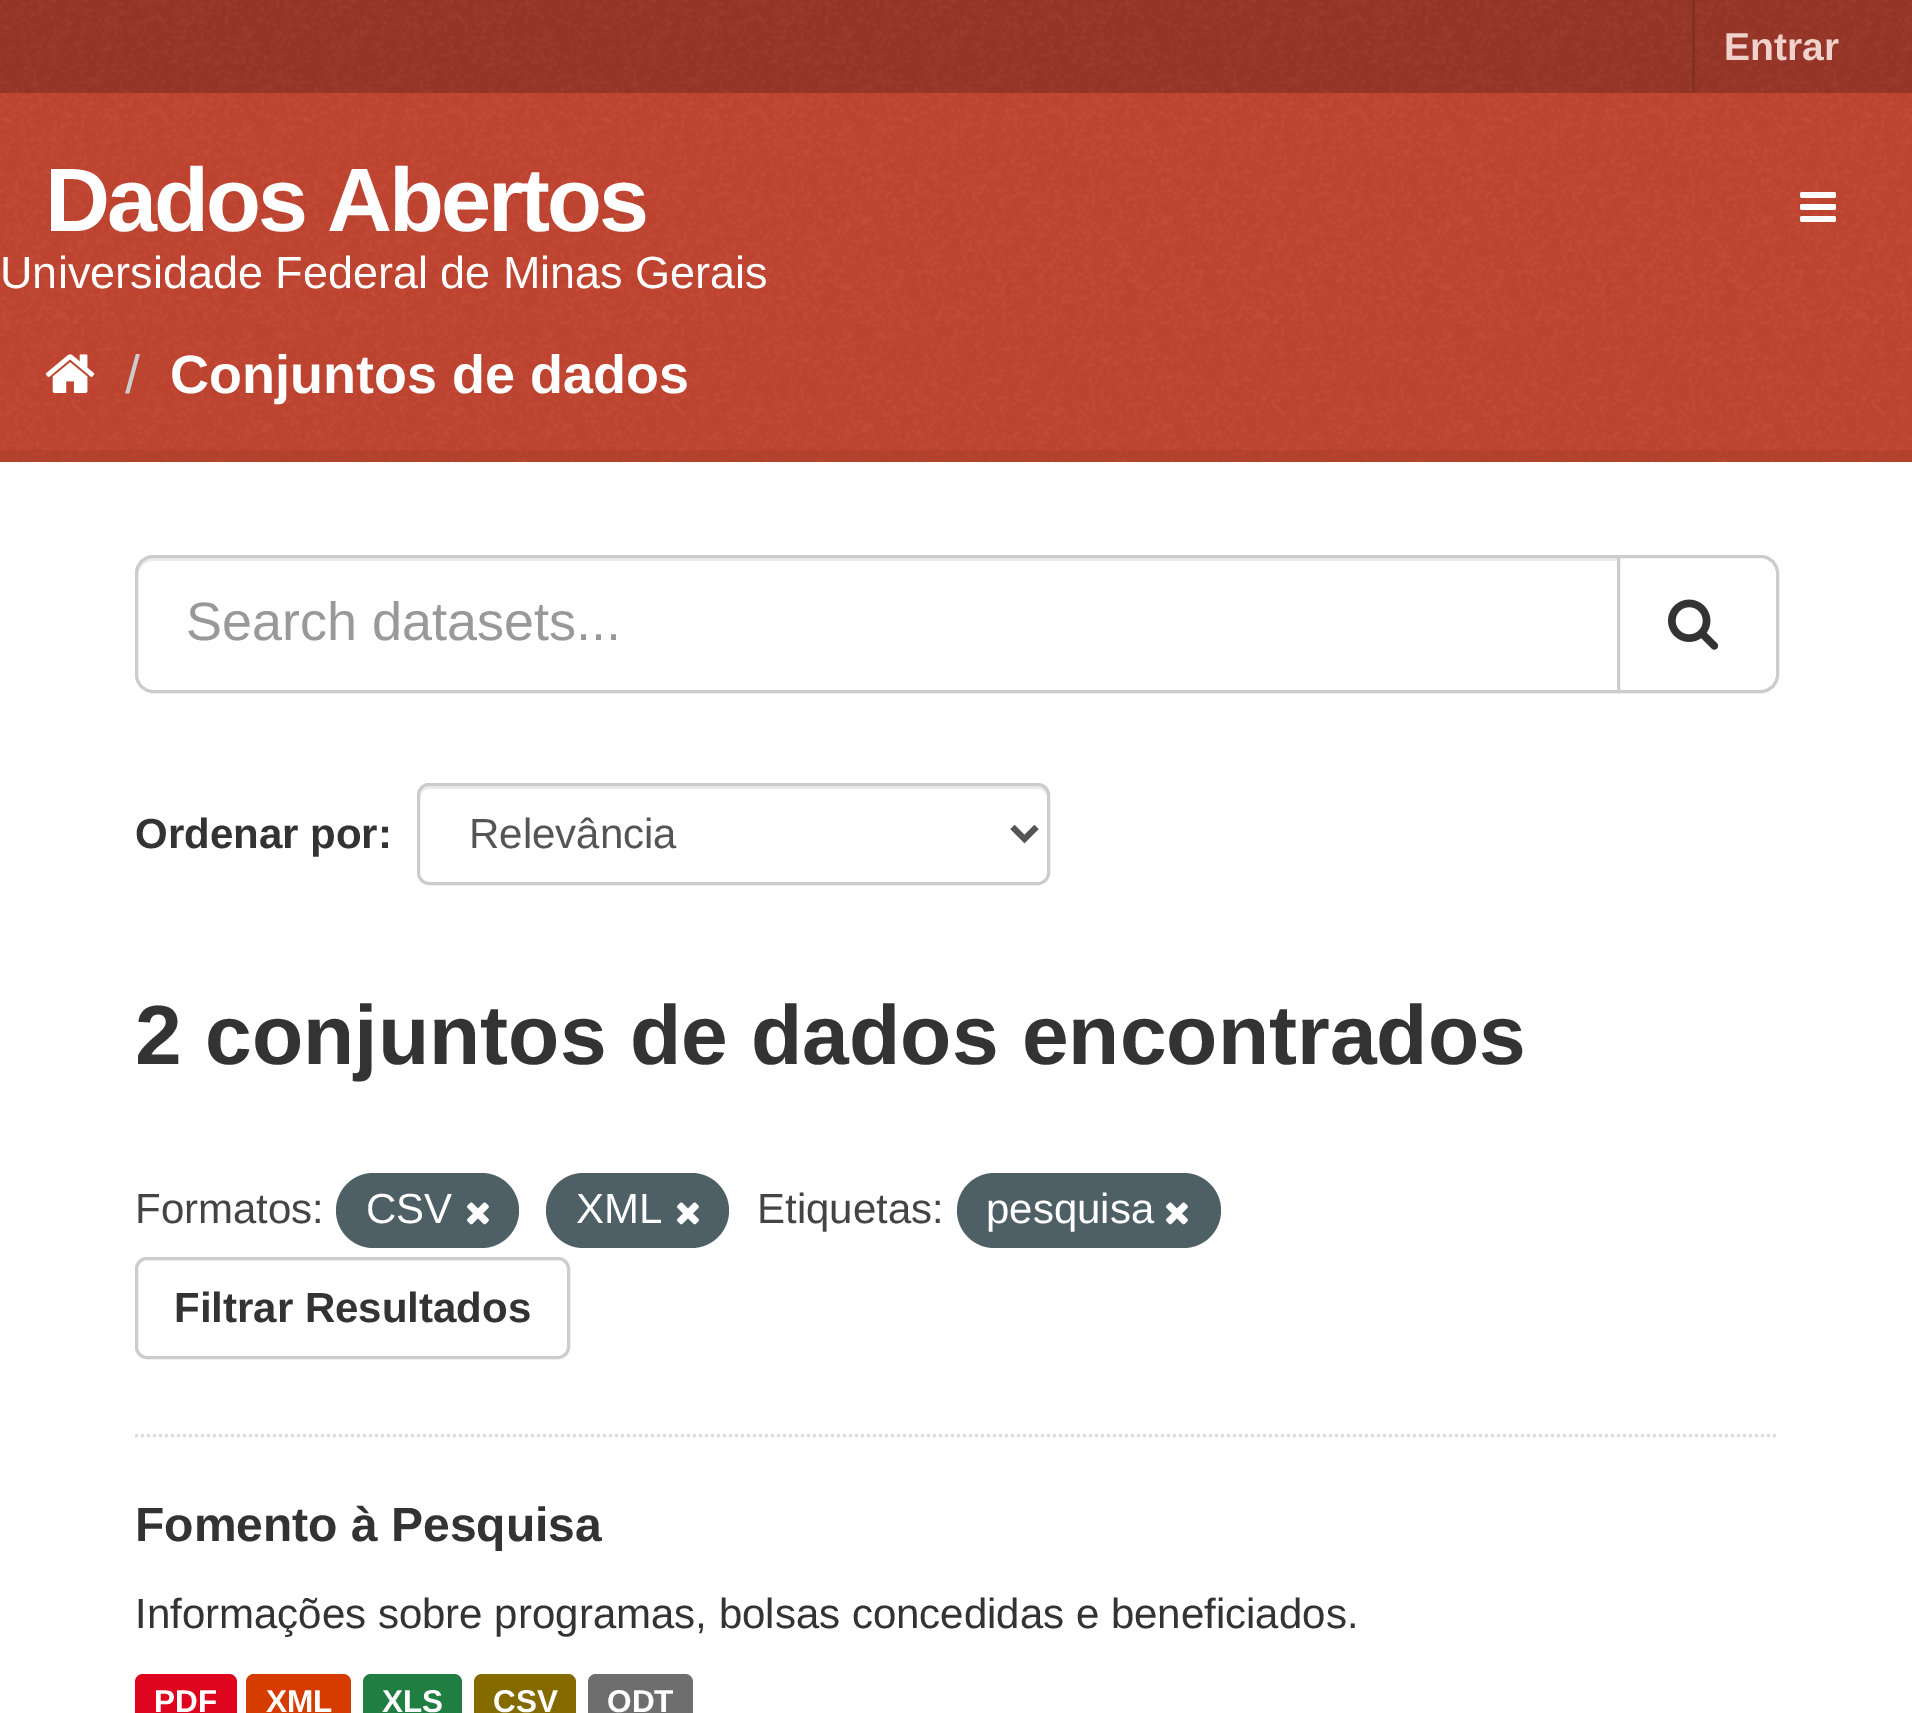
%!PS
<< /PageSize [1912 1713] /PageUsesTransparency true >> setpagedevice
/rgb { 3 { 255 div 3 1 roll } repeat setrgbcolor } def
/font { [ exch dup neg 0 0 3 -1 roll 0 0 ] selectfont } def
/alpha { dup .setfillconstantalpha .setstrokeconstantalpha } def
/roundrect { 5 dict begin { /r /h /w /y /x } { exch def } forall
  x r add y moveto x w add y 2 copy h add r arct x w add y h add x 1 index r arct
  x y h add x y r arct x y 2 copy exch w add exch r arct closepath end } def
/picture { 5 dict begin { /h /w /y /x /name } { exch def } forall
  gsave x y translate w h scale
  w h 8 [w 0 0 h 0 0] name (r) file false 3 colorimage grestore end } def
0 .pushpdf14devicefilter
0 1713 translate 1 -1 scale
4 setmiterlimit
193 69 49 rgb
0 0 1912 1713 rectfill
(img/1.rgb) 0 324 1912 138 picture
152 54 39 rgb
0 0 1912 93 rectfill
(img/2.rgb) 0 0 1912 93 picture
132 47 34 rgb
1692 0 3 93 rectfill
(img/3.rgb) 0 93 1912 231 picture
(img/4.rgb) 1800 192 36 30 picture
(img/5.rgb) 45 354 50 39 picture
0.05 alpha
0 0 0 rgb
12 setlinewidth
-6 456 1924 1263 rectstroke
1 alpha
255 255 255 rgb
0 462 1912 1251 rectfill
221 221 221 rgb
3 setlinewidth
[3 3] 0 setdash
135 1435.5 moveto 1779 1435.5 lineto stroke
236 236 236 rgb
153 561 moveto 1617 561 lineto 1617 558 lineto 153 558 lineto 145 558 138 565 138 573 curveto 138 576 lineto 138 568 145 561 153 561 curveto closepath fill
204 204 204 rgb
[] 0 setdash
153 556.5 moveto 1618.5 556.5 lineto 1618.5 691.5 lineto 153 691.5 lineto 144 691.5 136.5 684 136.5 675 curveto 136.5 573 lineto 136.5 564 144 556.5 153 556.5 curveto closepath stroke
255 255 255 rgb
1618.5 556.5 moveto 1761 556.5 lineto 1770 556.5 1777.5 564 1777.5 573 curveto 1777.5 675 lineto 1777.5 684 1770 691.5 1761 691.5 curveto 1618.5 691.5 lineto closepath gsave fill grestore
204 204 204 rgb
stroke
(img/6.rgb) 1668 599 51 51 picture
236 236 236 rgb
429 789 moveto 1038 789 lineto 1043 789 1047 793 1047 798 curveto 1047 795 lineto 1047 790 1043 786 1038 786 curveto 429 786 lineto 424 786 420 790 420 795 curveto 420 798 lineto 420 793 424 789 429 789 curveto closepath fill
204 204 204 rgb
418.5 784.5 630 99 10.5 roundrect stroke
85 85 85 rgb
6 setlinewidth
1012.5 827 moveto 1024.5 839 lineto 1036.5 827 lineto stroke
78 95 101 rgb
336 1173 183 75 37.5 roundrect fill
(img/7.rgb) 467 1202 22 23 picture
546 1173 183 75 37.5 roundrect fill
(img/7.rgb) 677 1202 22 23 picture
957 1173 264 75 37.5 roundrect fill
(img/7.rgb) 1166 1202 22 23 picture
204 204 204 rgb
3 setlinewidth
136.5 1258.5 432 99 10.5 roundrect stroke
224 5 30 rgb
135 1674 102 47 8 roundrect fill
214 59 0 rgb
246 1674 105 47 8 roundrect fill
32 126 66 rgb
363 1674 99 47 8 roundrect fill
133 106 0 rgb
474 1674 102 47 8 roundrect fill
110 110 110 rgb
588 1674 105 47 8 roundrect fill
/LiberationSans-Bold 39 font
240 209 204 rgb
1724 60 moveto (Entrar) show
/LiberationSans-Bold 90 font
255 255 255 rgb
45 231 moveto -3 0 (Dados Abertos) ashow
/LiberationSans-Regular 45 font
0 288 moveto (Universidade Federal de Minas Gerais) show
/LiberationSans-Regular 54 font
204 204 204 rgb
125 393 moveto (/) show
/LiberationSans-Bold 54 font
255 255 255 rgb
170 393 moveto (Conjuntos de dados) show
/LiberationSans-Regular 54 font
153 153 153 rgb
186 640 moveto (Search datasets...) show
/LiberationSans-Bold 42 font
51 51 51 rgb
135 848 moveto (Ordenar por:) show
/LiberationSans-Regular 42 font
85 85 85 rgb
469 848 moveto (Relevância) show
/LiberationSans-Bold 84 font
51 51 51 rgb
135 1064 moveto (2 conjuntos de dados encontrados) show
/LiberationSans-Regular 42 font
68 68 68 rgb
135 1223 moveto (Formatos:) show
255 255 255 rgb
366 1223 moveto (CSV) show
576 1223 moveto (XML) show
68 68 68 rgb
757 1223 moveto (Etiquetas:) show
255 255 255 rgb
986 1223 moveto (pesquisa) show
/LiberationSans-Bold 42 font
51 51 51 rgb
174 1322 moveto (Filtrar Resultados) show
/LiberationSans-Bold 48 font
135 1541 moveto (Fomento à Pesquisa) show
/LiberationSans-Regular 42 font
135 1628 moveto (Informações sobre programas, bolsas concedidas e beneficiados.) show
/LiberationSans-Bold 31.5 font
255 255 255 rgb
[
  [(PDF) 154 1712]
  [(XML) 266 1712]
  [(XLS) 382 1712]
  [(CSV) 493 1712]
  [(ODT) 607 1712]
] { aload pop moveto show } forall
.poppdf14devicefilter showpage
